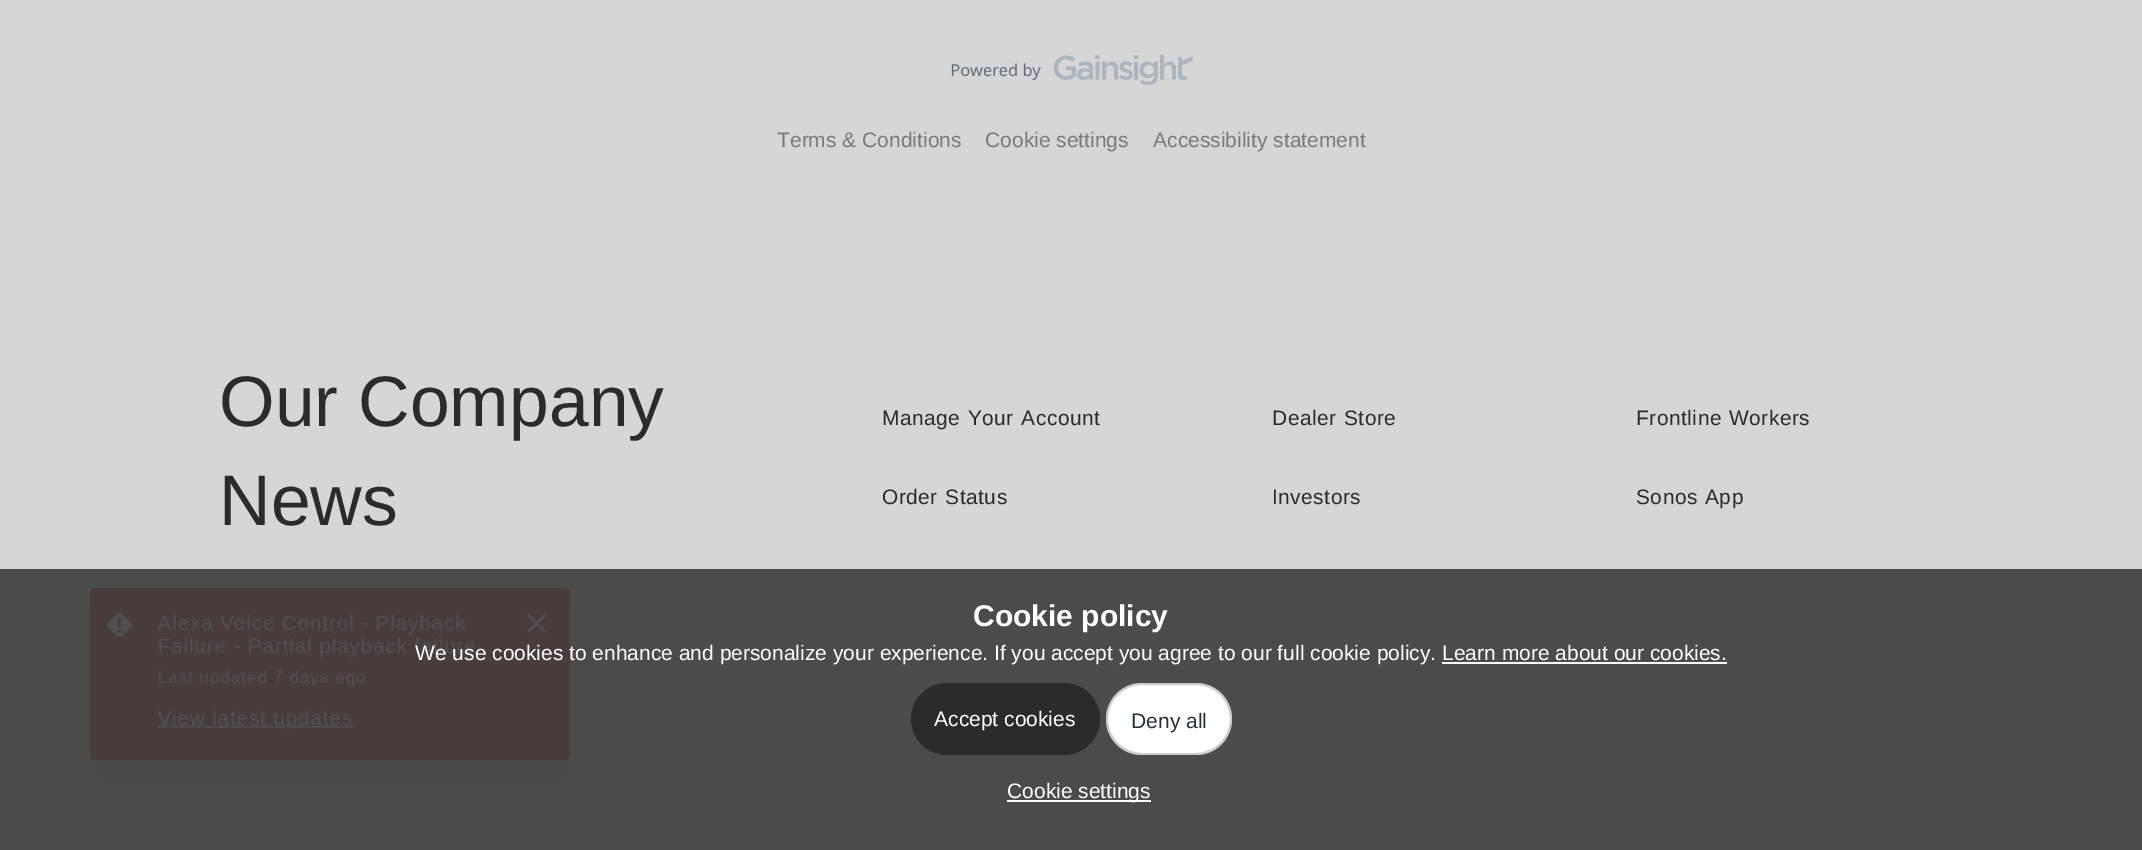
%!PS
<< /PageSize [2142 850] /PageUsesTransparency true >> setpagedevice
/rgb { 3 { 255 div 3 1 roll } repeat setrgbcolor } def
/font { [ exch dup neg 0 0 3 -1 roll 0 0 ] selectfont } def
/alpha { dup .setfillconstantalpha .setstrokeconstantalpha } def
/roundrect { 5 dict begin { /r /h /w /y /x } { exch def } forall
  x r add y moveto x w add y 2 copy h add r arct x w add y h add x 1 index r arct
  x y h add x y r arct x y 2 copy exch w add exch r arct closepath end } def
/shadow { 12 dict begin { /a /b /q /h /w /y /x } { exch def } forall gsave /was 0 def
  9 -2 -9 { dup b mul 4 div /e exch def 1 sub .425 mul 2.718 exch exp 1 add a .99 .min exch div /now exch def
    1 1 now sub 1 was sub div sub alpha /was now def
    w h .min e 2 mul add 0 gt { x e sub y e sub w e 2 mul add h e 2 mul add
      q e add b .6 mul add w h .min 2 div e add .min 0 .max roundrect fill } if } for grestore end } def
/picture { 5 dict begin { /h /w /y /x /name } { exch def } forall
  gsave x y translate w h scale
  w h 8 [w 0 0 h 0 0] name (r) file false 3 colorimage grestore end } def
0 .pushpdf14devicefilter
0 850 translate 1 -1 scale
4 setmiterlimit
214 214 214 rgb
0 0 2142 850 rectfill
(img/1.rgb) 951 55 242 30 picture
9 20 66 rgb
102 630 456 149 0 24 0.25 shadow
(img/2.rgb) 90 588 480 173 picture
0.9 alpha
60 60 60 rgb
0 569 2142 281 rectfill
1 alpha
255 255 255 rgb
1442 662 285 2 rectfill
43 43 43 rgb
911 683 189 72 36 roundrect fill
255 255 255 rgb
1106 683 126 72 36 roundrect fill
0.2 alpha
0 0 0 rgb
2 setlinewidth
1107 684 124 70 35 roundrect stroke
1 alpha
255 255 255 rgb
1007 800 144 2 rectfill
/LiberationSans-Regular 21 font
122 122 122 rgb
[
  [(Terms & Conditions) 777 147]
  [(Cookie settings) 985 147]
  [(Accessibility statement) 1153 147]
] { aload pop moveto show } forall
/LiberationSans-Bold 30 font
255 255 255 rgb
973 626 moveto (Cookie policy) show
/LiberationSans-Regular 21 font
415 660 moveto (We use cookies to enhance and personalize your experience. If you accept you agree to our full cookie policy. Learn more about our cookies.) show
934 726 moveto (Accept cookies) show
37 49 59 rgb
1131 728 moveto (Deny all) show
255 255 255 rgb
1007 798 moveto (Cookie settings) show
/LiberationSans-Regular 71.5 font
43 43 43 rgb
219 426 moveto (Our Company) show
219 525 moveto (News) show
/LiberationSans-Regular 20.9 font
882 425 moveto 1 0 32 0.5 0 (Manage Your Account) awidthshow
1272 425 moveto 1 0 32 0.5 0 (Dealer Store) awidthshow
1636 425 moveto 1 0 32 0.5 0 (Frontline Workers) awidthshow
882 504 moveto 1 0 32 0.5 0 (Order Status) awidthshow
1272 504 moveto 0.5 0 (Investors) ashow
1636 504 moveto 1 0 32 0.5 0 (Sonos App) awidthshow
.poppdf14devicefilter showpage
